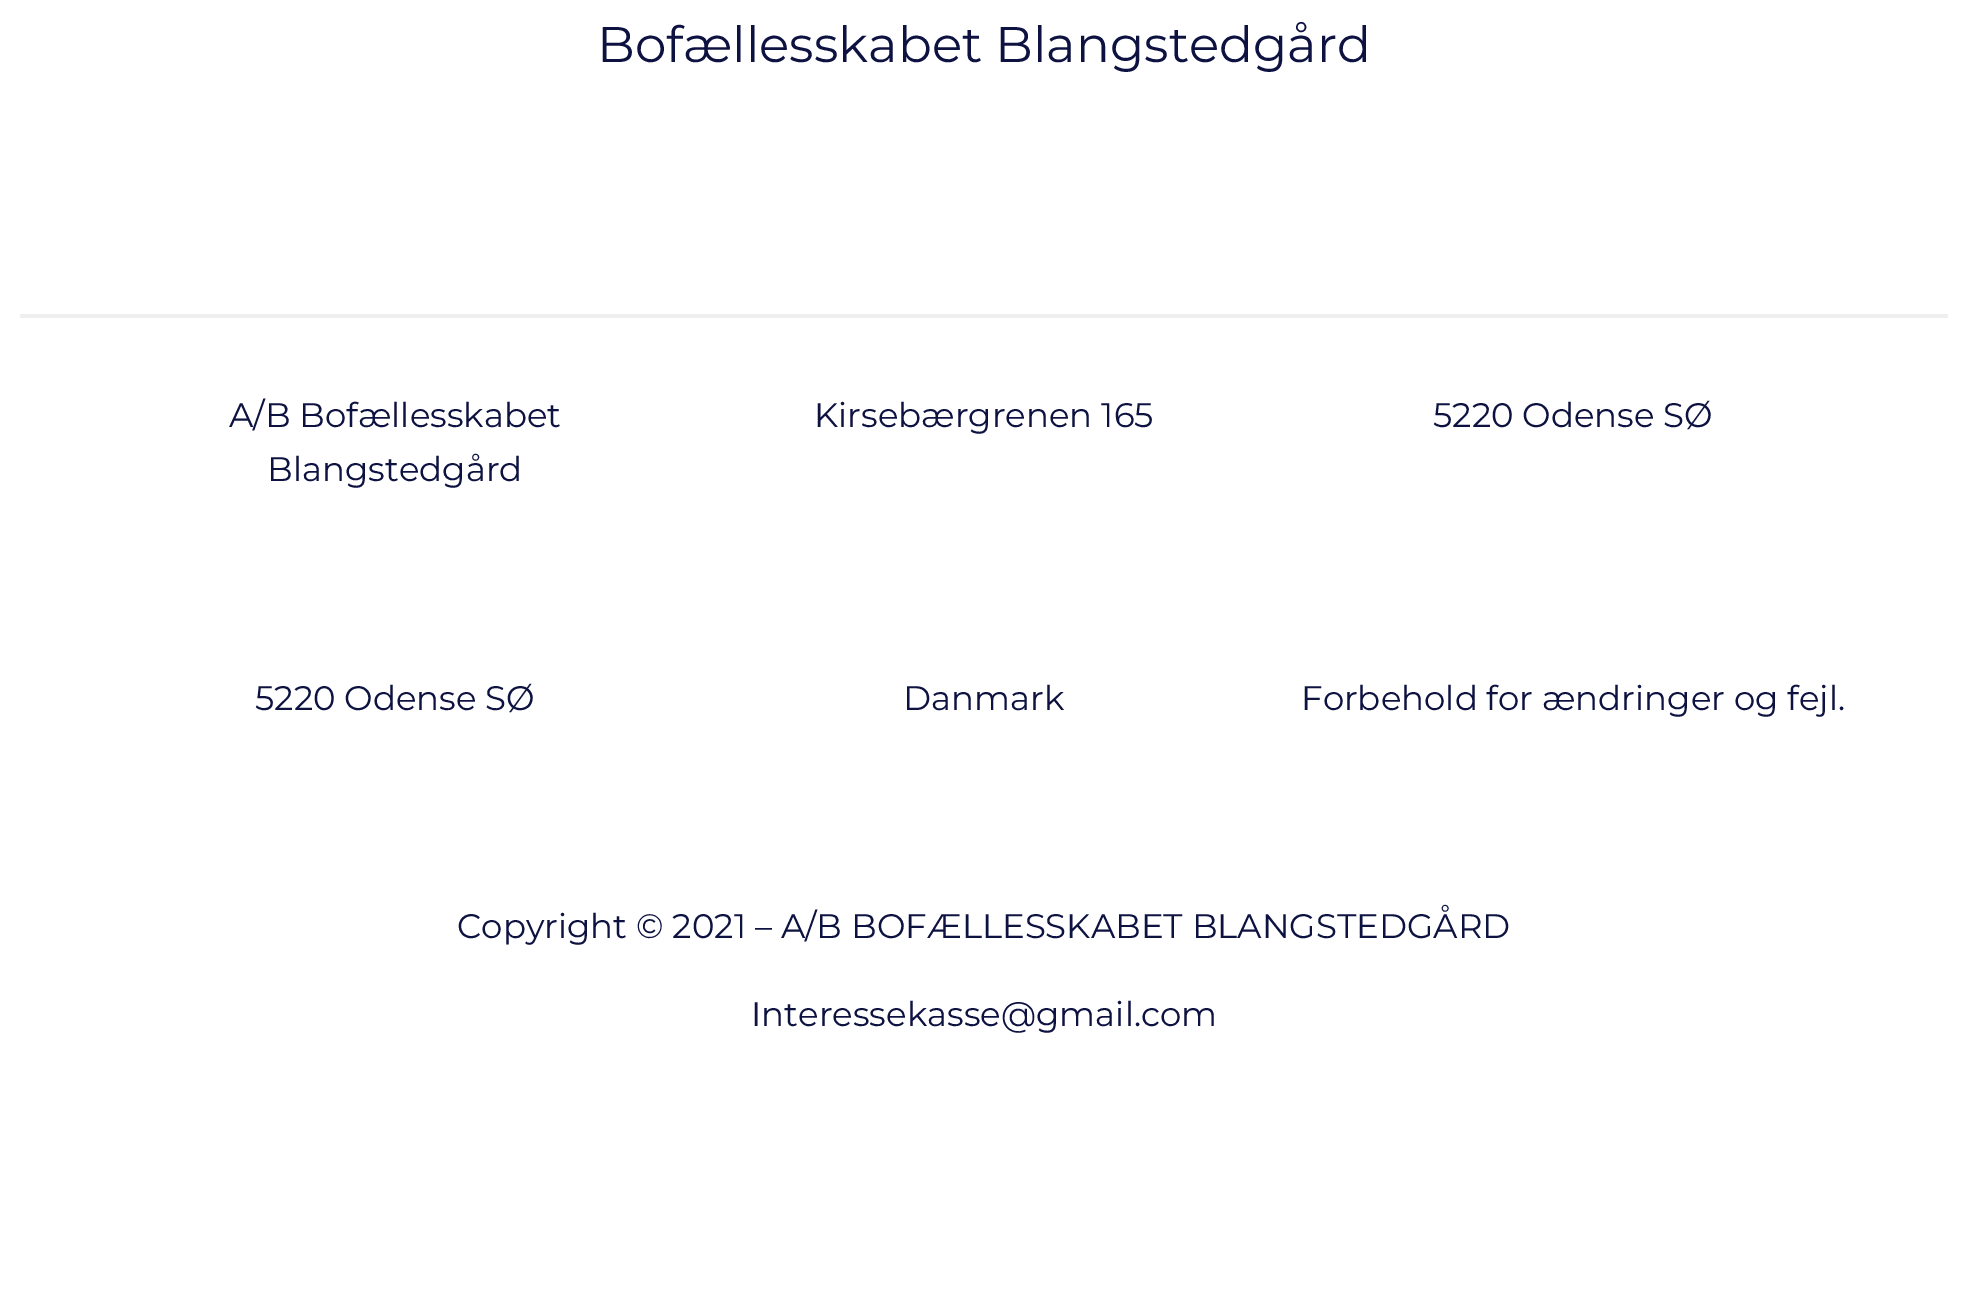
%!PS
<< /PageSize [1968 1291] >> setpagedevice
/rgb { 3 { 255 div 3 1 roll } repeat setrgbcolor } def
/font { [ exch dup neg 0 0 3 -1 roll 0 0 ] selectfont } def
0 1291 translate 1 -1 scale
4 setmiterlimit
255 255 255 rgb
0 0 1968 1291 rectfill
239 239 239 rgb
20 314 1928 4 rectfill
/Montserrat-Regular 50 font
13 18 65 rgb
597 62 moveto (Bofællesskabet Blangstedgård) show
/Montserrat-Regular 34 font
[
  [(A/B Bofællesskabet) 229 427]
  [(Blangstedgård) 267 481]
  [(Kirsebærgrenen 165) 814 427]
  [(5220 Odense SØ) 1433 427]
  [(5220 Odense SØ) 255 710]
  [(Danmark) 903 710]
  [(Forbehold for ændringer og fejl.) 1301 710]
  [(Copyright © 2021 – A/B BOFÆLLESSKABET BLANGSTEDGÅRD) 457 938]
  [(Interessekasse@gmail.com) 751 1026]
] { aload pop moveto show } forall
showpage
